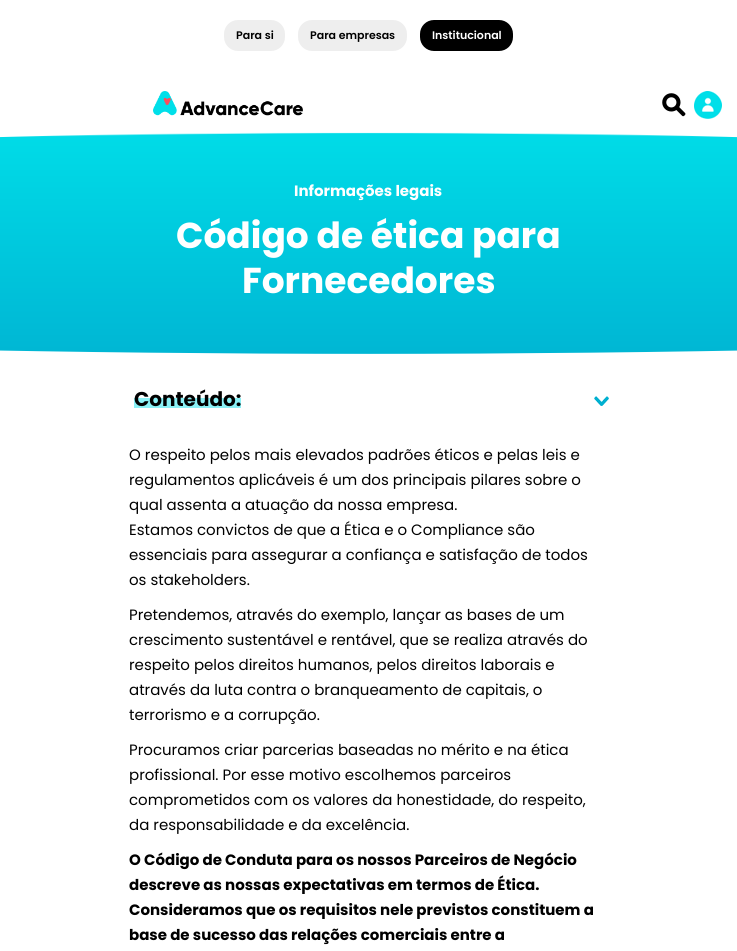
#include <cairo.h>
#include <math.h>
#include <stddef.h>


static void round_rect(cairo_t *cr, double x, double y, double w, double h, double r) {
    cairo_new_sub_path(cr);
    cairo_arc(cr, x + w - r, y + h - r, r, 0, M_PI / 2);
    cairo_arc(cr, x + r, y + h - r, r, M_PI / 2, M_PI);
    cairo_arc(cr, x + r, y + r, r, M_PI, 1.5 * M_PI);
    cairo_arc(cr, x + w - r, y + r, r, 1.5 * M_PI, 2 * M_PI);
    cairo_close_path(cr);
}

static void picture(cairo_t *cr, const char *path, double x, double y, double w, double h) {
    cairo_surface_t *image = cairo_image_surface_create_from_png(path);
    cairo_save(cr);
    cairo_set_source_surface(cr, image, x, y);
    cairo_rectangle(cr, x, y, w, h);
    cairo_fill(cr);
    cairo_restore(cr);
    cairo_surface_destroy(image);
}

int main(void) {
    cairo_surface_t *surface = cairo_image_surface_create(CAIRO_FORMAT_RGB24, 737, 951);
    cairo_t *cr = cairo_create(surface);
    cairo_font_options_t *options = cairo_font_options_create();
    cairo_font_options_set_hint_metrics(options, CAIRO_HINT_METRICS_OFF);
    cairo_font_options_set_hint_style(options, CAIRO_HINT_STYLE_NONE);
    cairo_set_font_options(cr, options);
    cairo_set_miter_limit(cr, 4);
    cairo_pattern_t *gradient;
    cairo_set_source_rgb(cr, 1, 1, 1);
    cairo_paint(cr);
    gradient = cairo_pattern_create_linear(369, 113, 369, 385);
    cairo_pattern_add_color_stop_rgba(gradient, 0, 0, 0.875, 0.914, 1);
    cairo_pattern_add_color_stop_rgba(gradient, 1, 0, 0.694, 0.82, 1);
    cairo_set_source(cr, gradient);
    cairo_pattern_destroy(gradient);
    cairo_rectangle(cr, 0, 132, 737, 222);
    cairo_fill(cr);
    picture(cr, "img1.png", 0, 113, 737, 25);
    cairo_set_source_rgb(cr, 0.933, 0.933, 0.933);
    round_rect(cr, 226, 22, 57, 27, 12);
    cairo_fill_preserve(cr);
    cairo_set_line_width(cr, 4);
    cairo_stroke(cr);
    cairo_select_font_face(cr, "Poppins SemiBold", CAIRO_FONT_SLANT_NORMAL, CAIRO_FONT_WEIGHT_NORMAL);
    cairo_set_font_size(cr, 11);
    cairo_set_source_rgb(cr, 0, 0, 0);
    cairo_move_to(cr, 236, 39);
    cairo_show_text(cr, "Para si");
    cairo_set_source_rgb(cr, 0.933, 0.933, 0.933);
    round_rect(cr, 300, 22, 105, 27, 12);
    cairo_fill_preserve(cr);
    cairo_stroke(cr);
    cairo_set_source_rgb(cr, 0, 0, 0);
    cairo_move_to(cr, 310, 39);
    cairo_show_text(cr, "Para empresas");
    round_rect(cr, 422, 22, 89, 27, 12);
    cairo_fill_preserve(cr);
    cairo_stroke(cr);
    cairo_set_source_rgb(cr, 1, 1, 1);
    cairo_move_to(cr, 432, 39);
    cairo_show_text(cr, "Institucional");
    picture(cr, "img2.png", 153, 91, 150, 25);
    picture(cr, "img3.png", 662, 93, 24, 24);
    picture(cr, "img4.png", 694, 91, 28, 28);
    cairo_select_font_face(cr, "Poppins", CAIRO_FONT_SLANT_NORMAL, CAIRO_FONT_WEIGHT_BOLD);
    cairo_set_font_size(cr, 15);
    cairo_move_to(cr, 294, 196);
    cairo_show_text(cr, "Informações legais");
    cairo_set_font_size(cr, 36);
    cairo_move_to(cr, 176, 248);
    cairo_show_text(cr, "Código de ética para");
    cairo_move_to(cr, 242, 293);
    cairo_show_text(cr, "Fornecedores");
    picture(cr, "img5.png", 0, 350, 737, 35);
    cairo_set_source_rgb(cr, 0.545, 0.945, 0.961);
    cairo_rectangle(cr, 134, 398, 107, 10);
    cairo_fill(cr);
    cairo_set_font_size(cr, 20);
    cairo_set_source_rgb(cr, 0, 0, 0);
    cairo_move_to(cr, 134, 406);
    cairo_show_text(cr, "Conteúdo:");
    picture(cr, "img6.png", 594, 396, 15, 10);
    cairo_select_font_face(cr, "Poppins", CAIRO_FONT_SLANT_NORMAL, CAIRO_FONT_WEIGHT_NORMAL);
    cairo_set_font_size(cr, 15);
    cairo_move_to(cr, 129, 460);
    cairo_show_text(cr, "O respeito pelos mais elevados padrões éticos e pelas leis e");
    cairo_move_to(cr, 129, 485);
    cairo_show_text(cr, "regulamentos aplicáveis é um dos principais pilares sobre o");
    cairo_move_to(cr, 129, 510);
    cairo_show_text(cr, "qual assenta a atuação da nossa empresa.");
    cairo_move_to(cr, 129, 535);
    cairo_show_text(cr, "Estamos convictos de que a Ética e o Compliance são");
    cairo_move_to(cr, 129, 560);
    cairo_show_text(cr, "essenciais para assegurar a confiança e satisfação de todos");
    cairo_move_to(cr, 129, 585);
    cairo_show_text(cr, "os stakeholders.");
    cairo_move_to(cr, 129, 620);
    cairo_show_text(cr, "Pretendemos, através do exemplo, lançar as bases de um");
    cairo_move_to(cr, 129, 645);
    cairo_show_text(cr, "crescimento sustentável e rentável, que se realiza através do");
    cairo_move_to(cr, 129, 670);
    cairo_show_text(cr, "respeito pelos direitos humanos, pelos direitos laborais e");
    cairo_move_to(cr, 129, 695);
    cairo_show_text(cr, "através da luta contra o branqueamento de capitais, o");
    cairo_move_to(cr, 129, 720);
    cairo_show_text(cr, "terrorismo e a corrupção.");
    cairo_move_to(cr, 129, 755);
    cairo_show_text(cr, "Procuramos criar parcerias baseadas no mérito e na ética");
    cairo_move_to(cr, 129, 780);
    cairo_show_text(cr, "profissional. Por esse motivo escolhemos parceiros");
    cairo_move_to(cr, 129, 805);
    cairo_show_text(cr, "comprometidos com os valores da honestidade, do respeito,");
    cairo_move_to(cr, 129, 830);
    cairo_show_text(cr, "da responsabilidade e da excelência.");
    cairo_select_font_face(cr, "Poppins", CAIRO_FONT_SLANT_NORMAL, CAIRO_FONT_WEIGHT_BOLD);
    cairo_move_to(cr, 129, 865);
    cairo_show_text(cr, "O Código de Conduta para os nossos Parceiros de Negócio");
    cairo_move_to(cr, 129, 890);
    cairo_show_text(cr, "descreve as nossas expectativas em termos de Ética.");
    cairo_move_to(cr, 129, 915);
    cairo_show_text(cr, "Consideramos que os requisitos nele previstos constituem a");
    cairo_move_to(cr, 129, 940);
    cairo_show_text(cr, "base de sucesso das relações comerciais entre a");
    cairo_surface_write_to_png(surface, "page.png");
    cairo_font_options_destroy(options);
    cairo_destroy(cr);
    cairo_surface_destroy(surface);
    return 0;
}
